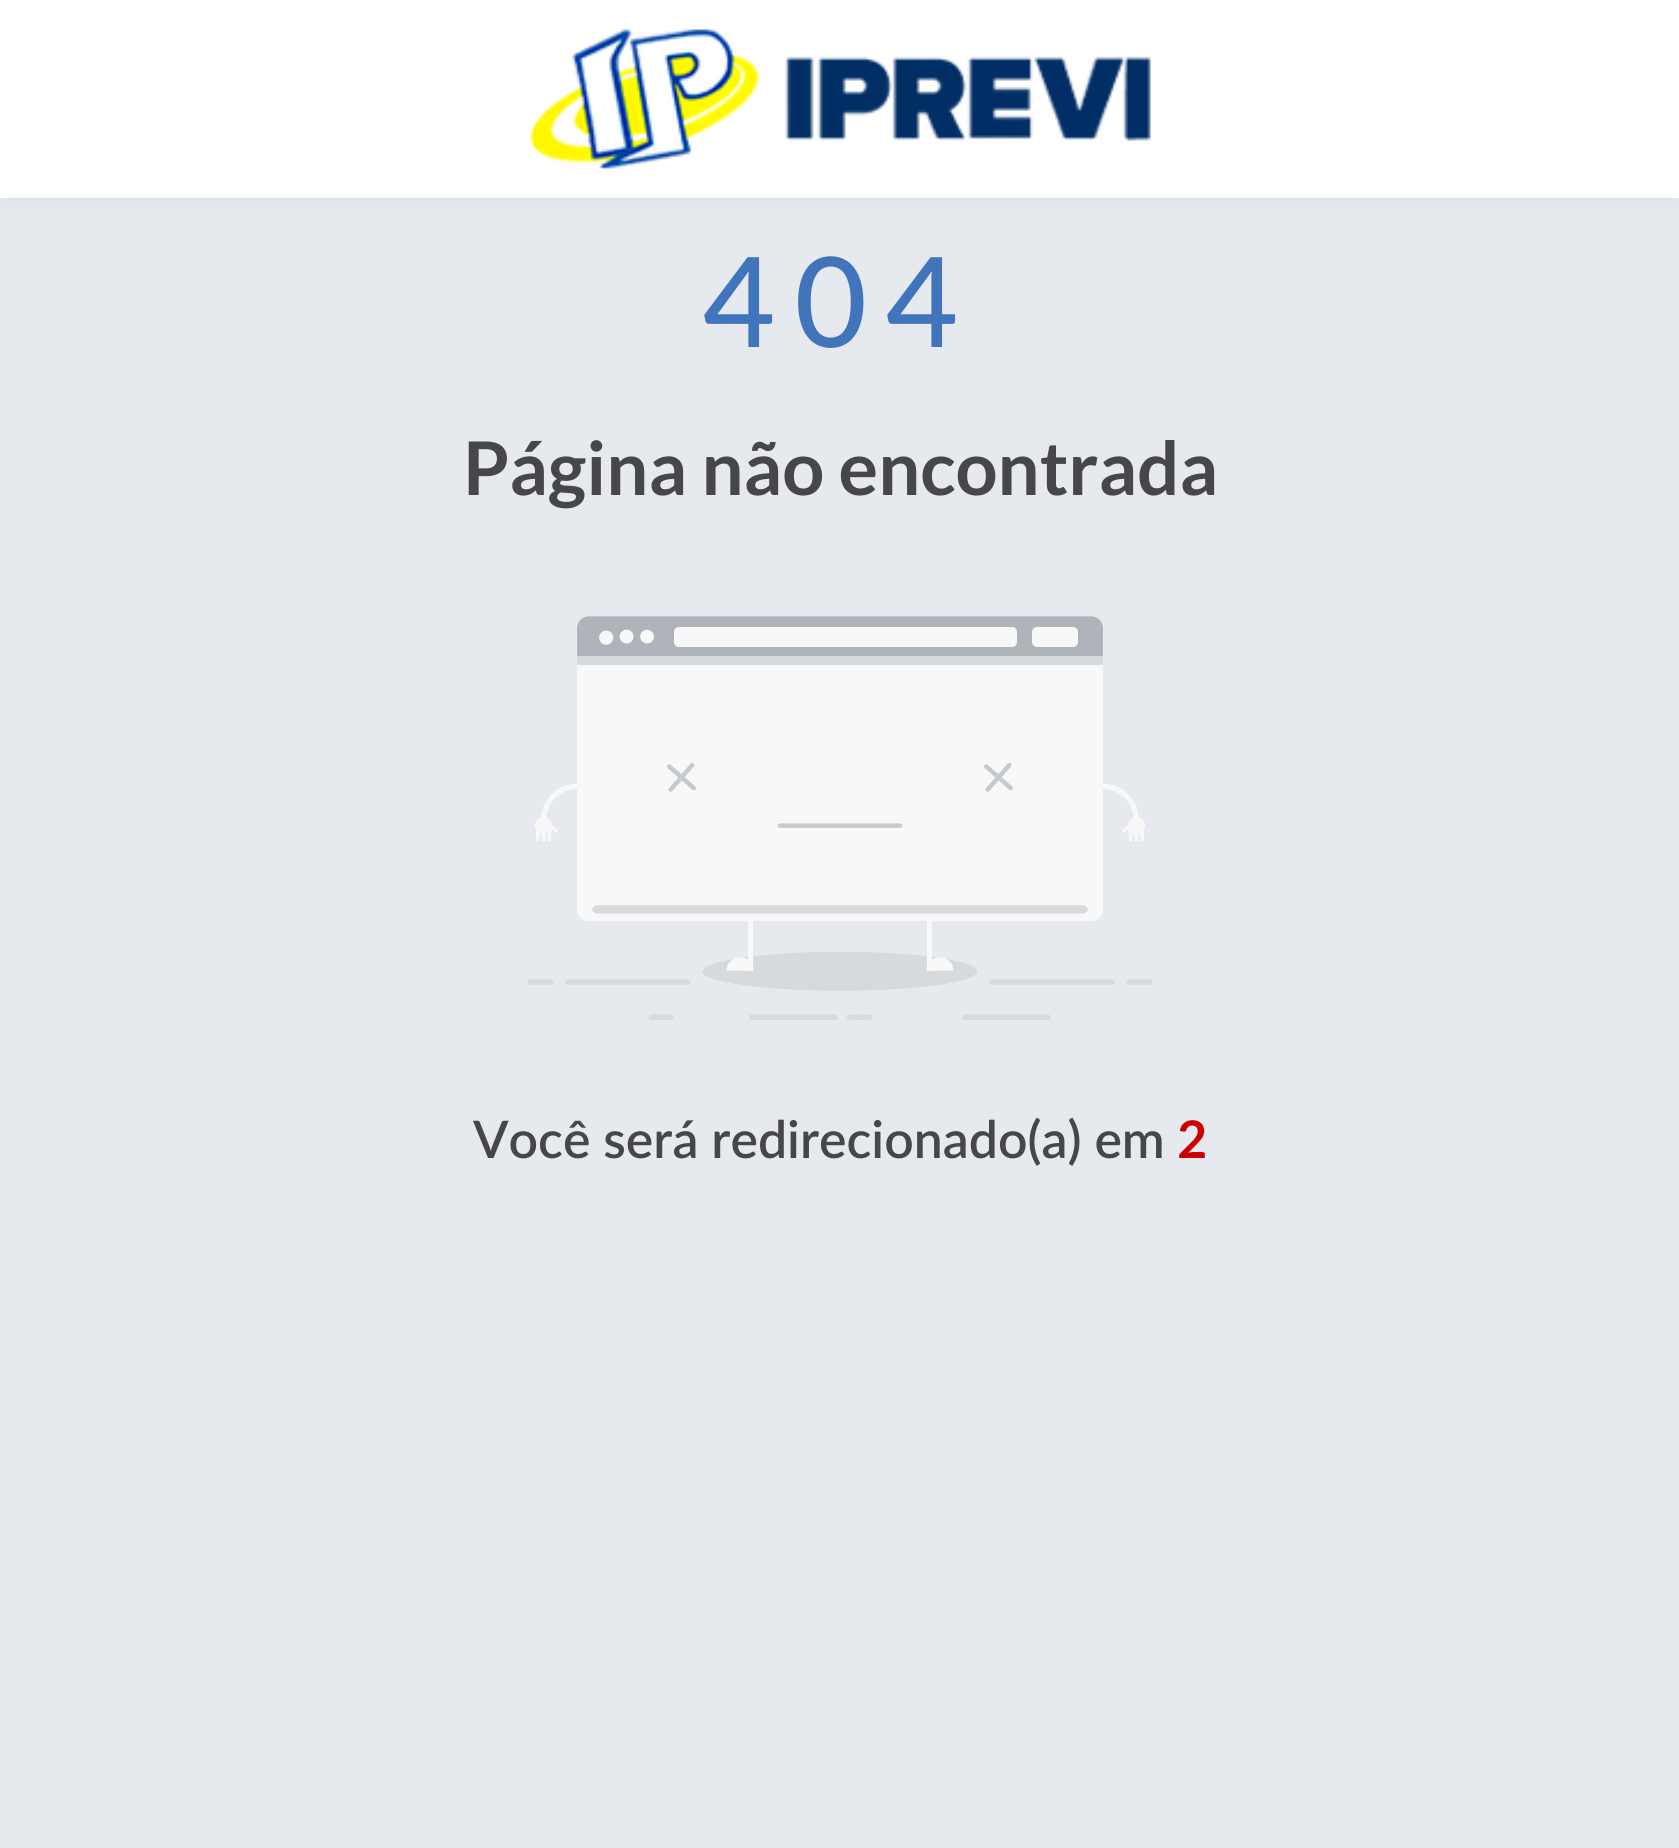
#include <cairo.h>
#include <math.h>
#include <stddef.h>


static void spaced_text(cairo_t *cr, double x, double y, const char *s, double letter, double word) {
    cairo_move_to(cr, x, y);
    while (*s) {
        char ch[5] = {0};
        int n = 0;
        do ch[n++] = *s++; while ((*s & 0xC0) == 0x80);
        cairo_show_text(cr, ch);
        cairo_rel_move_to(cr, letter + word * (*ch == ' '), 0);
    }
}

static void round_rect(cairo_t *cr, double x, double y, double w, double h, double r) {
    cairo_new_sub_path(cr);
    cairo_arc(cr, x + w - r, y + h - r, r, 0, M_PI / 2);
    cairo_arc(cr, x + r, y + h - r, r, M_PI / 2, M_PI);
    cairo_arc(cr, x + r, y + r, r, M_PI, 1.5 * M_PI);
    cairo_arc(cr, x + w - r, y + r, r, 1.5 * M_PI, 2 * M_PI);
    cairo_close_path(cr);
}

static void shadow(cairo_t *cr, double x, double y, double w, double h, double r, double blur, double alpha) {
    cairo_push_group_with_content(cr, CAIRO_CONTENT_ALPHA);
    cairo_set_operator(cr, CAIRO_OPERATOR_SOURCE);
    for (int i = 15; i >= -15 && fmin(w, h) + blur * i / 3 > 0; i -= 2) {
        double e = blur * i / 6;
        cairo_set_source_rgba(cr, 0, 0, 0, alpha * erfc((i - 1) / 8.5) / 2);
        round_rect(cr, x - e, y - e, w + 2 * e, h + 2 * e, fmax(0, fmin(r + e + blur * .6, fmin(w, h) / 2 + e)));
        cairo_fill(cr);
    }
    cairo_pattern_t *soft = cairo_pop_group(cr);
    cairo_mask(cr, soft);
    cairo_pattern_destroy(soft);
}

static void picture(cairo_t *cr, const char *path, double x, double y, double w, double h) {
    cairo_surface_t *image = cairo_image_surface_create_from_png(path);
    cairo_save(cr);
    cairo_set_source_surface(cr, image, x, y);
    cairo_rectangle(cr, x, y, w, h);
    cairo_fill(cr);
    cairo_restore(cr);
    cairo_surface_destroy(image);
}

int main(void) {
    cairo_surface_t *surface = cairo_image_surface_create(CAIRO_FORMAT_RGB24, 1679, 1848);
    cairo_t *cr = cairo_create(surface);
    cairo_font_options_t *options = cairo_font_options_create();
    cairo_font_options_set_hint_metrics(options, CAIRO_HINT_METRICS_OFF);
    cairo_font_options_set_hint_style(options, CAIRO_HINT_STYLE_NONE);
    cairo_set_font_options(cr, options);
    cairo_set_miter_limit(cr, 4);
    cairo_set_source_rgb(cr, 0.902, 0.914, 0.929);
    cairo_paint(cr);
    cairo_set_source_rgb(cr, 0, 0, 0);
    shadow(cr, 0, 0, 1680, 198, 0, 12.5, 0.05);
    cairo_set_source_rgb(cr, 1, 1, 1);
    cairo_rectangle(cr, 0, 0, 1679, 198);
    cairo_fill(cr);
    picture(cr, "img1.png", 530, 29, 621, 140);
    cairo_select_font_face(cr, "Lato Medium", CAIRO_FONT_SLANT_NORMAL, CAIRO_FONT_WEIGHT_NORMAL);
    cairo_set_font_size(cr, 125);
    cairo_set_source_rgb(cr, 0.255, 0.459, 0.733);
    spaced_text(cr, 703, 347, "404", 19, 0);
    cairo_select_font_face(cr, "Lato", CAIRO_FONT_SLANT_NORMAL, CAIRO_FONT_WEIGHT_BOLD);
    cairo_set_font_size(cr, 74);
    cairo_set_source_rgb(cr, 0.278, 0.278, 0.294);
    cairo_move_to(cr, 463, 495);
    cairo_show_text(cr, "Página não encontrada");
    picture(cr, "img2.png", 528, 616, 624, 404);
    cairo_select_font_face(cr, "Lato SemiBold", CAIRO_FONT_SLANT_NORMAL, CAIRO_FONT_WEIGHT_NORMAL);
    cairo_set_font_size(cr, 51.75);
    cairo_move_to(cr, 473, 1158);
    cairo_show_text(cr, "Você será redirecionado(a) em");
    cairo_select_font_face(cr, "Lato", CAIRO_FONT_SLANT_NORMAL, CAIRO_FONT_WEIGHT_BOLD);
    cairo_set_source_rgb(cr, 0.792, 0, 0);
    cairo_move_to(cr, 1177, 1158);
    cairo_show_text(cr, "2");
    cairo_surface_write_to_png(surface, "page.png");
    cairo_font_options_destroy(options);
    cairo_destroy(cr);
    cairo_surface_destroy(surface);
    return 0;
}
